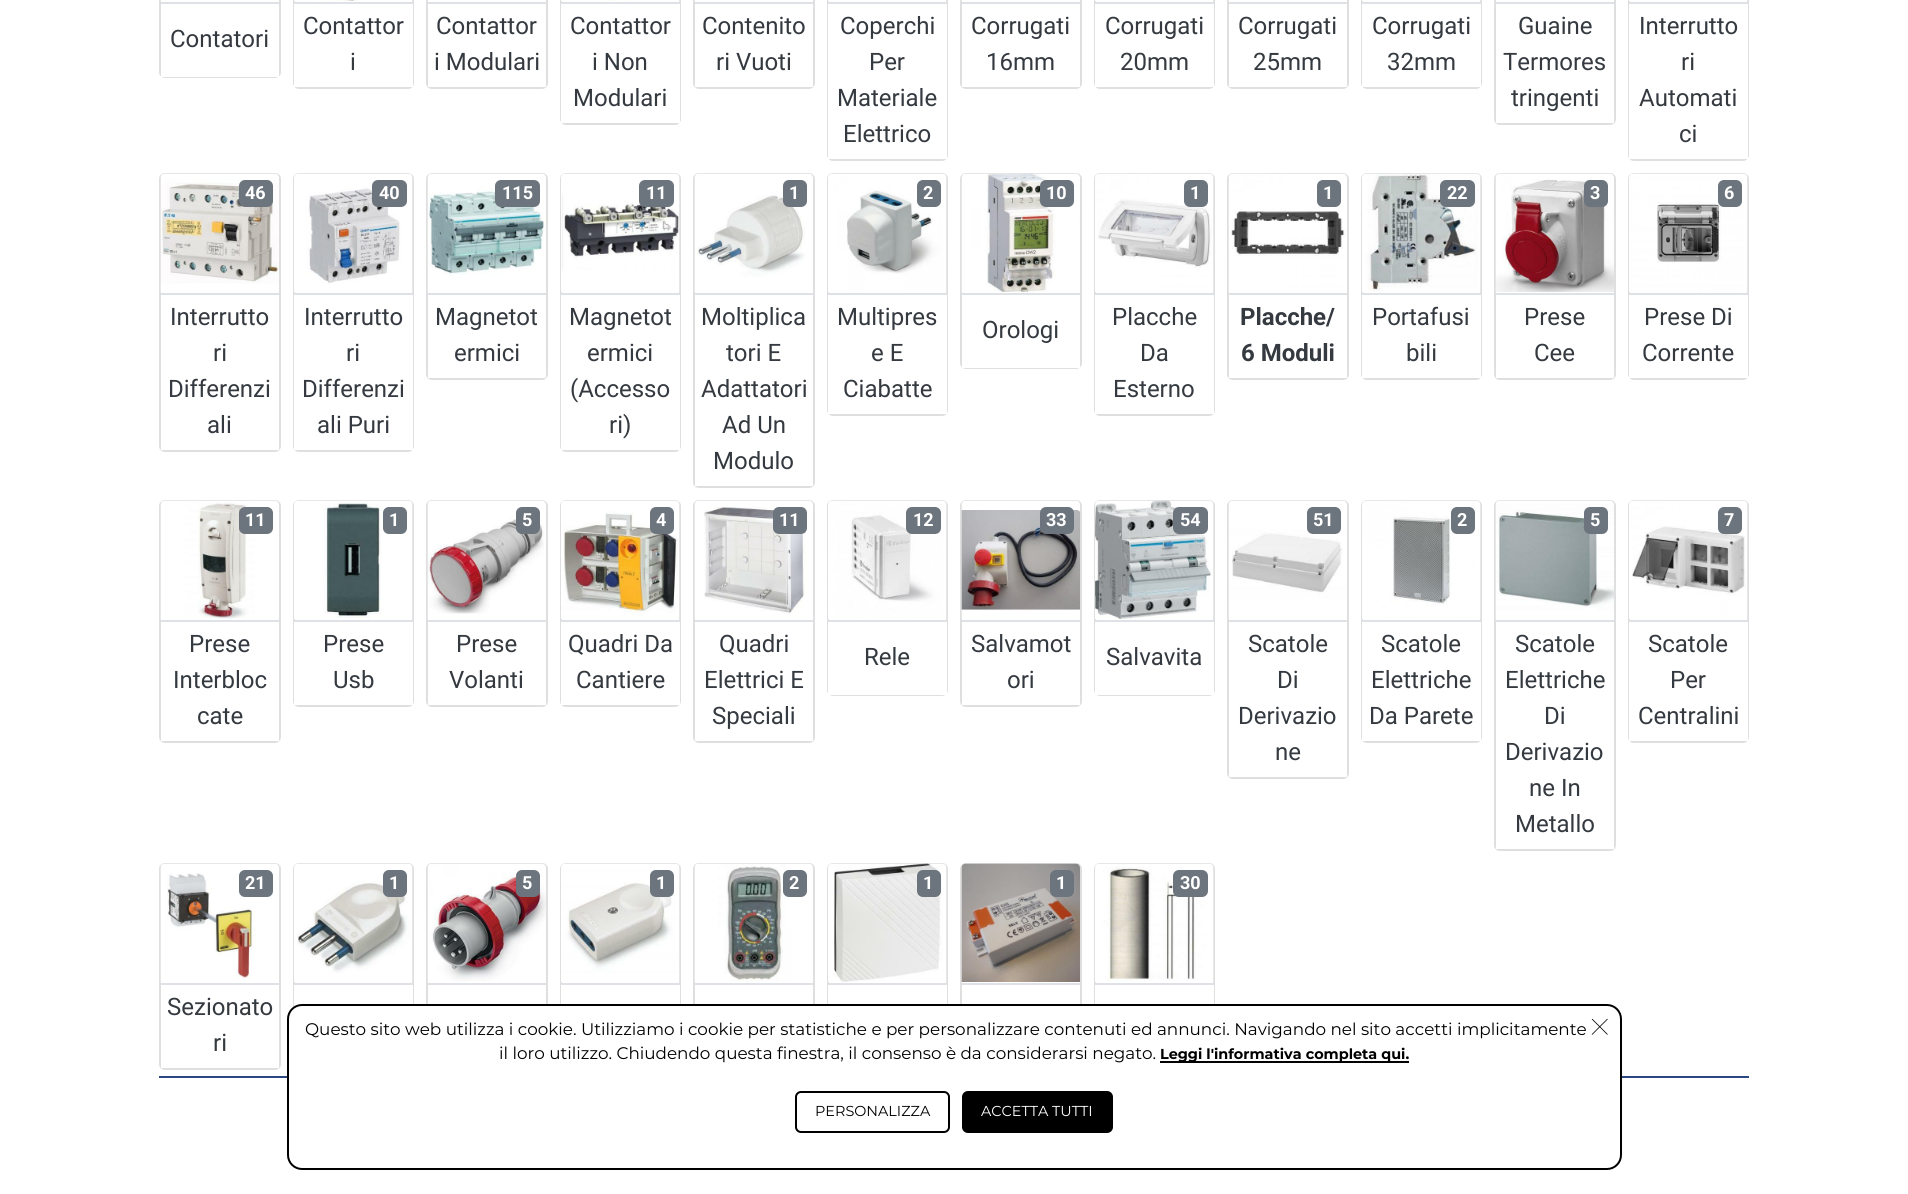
#include <cairo.h>
#include <math.h>
#include <stddef.h>


static void round_rect(cairo_t *cr, double x, double y, double w, double h, double r) {
    cairo_new_sub_path(cr);
    cairo_arc(cr, x + w - r, y + h - r, r, 0, M_PI / 2);
    cairo_arc(cr, x + r, y + h - r, r, M_PI / 2, M_PI);
    cairo_arc(cr, x + r, y + r, r, M_PI, 1.5 * M_PI);
    cairo_arc(cr, x + w - r, y + r, r, 1.5 * M_PI, 2 * M_PI);
    cairo_close_path(cr);
}

static void picture(cairo_t *cr, const char *path, double x, double y, double w, double h) {
    cairo_surface_t *image = cairo_image_surface_create_from_png(path);
    cairo_save(cr);
    cairo_set_source_surface(cr, image, x, y);
    cairo_rectangle(cr, x, y, w, h);
    cairo_fill(cr);
    cairo_restore(cr);
    cairo_surface_destroy(image);
}

int main(void) {
    cairo_surface_t *surface = cairo_image_surface_create(CAIRO_FORMAT_RGB24, 1908, 1194);
    cairo_t *cr = cairo_create(surface);
    cairo_font_options_t *options = cairo_font_options_create();
    cairo_font_options_set_hint_metrics(options, CAIRO_HINT_METRICS_OFF);
    cairo_font_options_set_hint_style(options, CAIRO_HINT_STYLE_NONE);
    cairo_set_font_options(cr, options);
    cairo_set_miter_limit(cr, 4);
    cairo_set_source_rgb(cr, 1, 1, 1);
    cairo_paint(cr);
    cairo_set_source_rgb(cr, 0.165, 0.278, 0.514);
    cairo_rectangle(cr, 159, 1076, 1590, 2);
    cairo_fill(cr);
    round_rect(cr, 160, -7, 120, 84, 5);
    cairo_set_source_rgb(cr, 0.875, 0.875, 0.875);
    cairo_stroke(cr);
    cairo_set_source_rgb(cr, 0.906, 0.906, 0.906);
    cairo_rectangle(cr, 160, 0, 1, 1);
    cairo_fill(cr);
    cairo_set_source_rgb(cr, 1, 1, 1);
    cairo_rectangle(cr, 161, 73, 118, 4);
    cairo_fill(cr);
    cairo_set_source_rgb(cr, 0.871, 0.886, 0.902);
    cairo_rectangle(cr, 161, 2, 118, 2);
    cairo_fill(cr);
    cairo_select_font_face(cr, "Roboto", CAIRO_FONT_SLANT_NORMAL, CAIRO_FONT_WEIGHT_NORMAL);
    cairo_set_font_size(cr, 24);
    cairo_set_source_rgb(cr, 0.204, 0.227, 0.251);
    cairo_move_to(cr, 170, 47);
    cairo_show_text(cr, "Contatori");
    round_rect(cr, 294, -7, 119, 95, 5);
    cairo_set_source_rgb(cr, 0.875, 0.875, 0.875);
    cairo_stroke(cr);
    picture(cr, "img1.png", 294, 0, 119, 1);
    cairo_set_source_rgb(cr, 1, 1, 1);
    cairo_rectangle(cr, 294, 4, 119, 83);
    cairo_fill(cr);
    cairo_set_source_rgb(cr, 0.871, 0.886, 0.902);
    cairo_rectangle(cr, 294, 2, 119, 2);
    cairo_fill(cr);
    cairo_set_source_rgb(cr, 0.204, 0.227, 0.251);
    cairo_move_to(cr, 303, 34);
    cairo_show_text(cr, "Contattor");
    cairo_move_to(cr, 350, 70);
    cairo_show_text(cr, "i");
    round_rect(cr, 427, -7, 120, 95, 5);
    cairo_set_source_rgb(cr, 0.875, 0.875, 0.875);
    cairo_stroke(cr);
    cairo_set_source_rgb(cr, 0.906, 0.906, 0.906);
    cairo_rectangle(cr, 427, 0, 1, 1);
    cairo_fill(cr);
    cairo_set_source_rgb(cr, 1, 1, 1);
    cairo_rectangle(cr, 428, 84, 118, 3);
    cairo_fill(cr);
    cairo_set_source_rgb(cr, 0.871, 0.886, 0.902);
    cairo_rectangle(cr, 428, 2, 118, 2);
    cairo_fill(cr);
    cairo_set_source_rgb(cr, 0.204, 0.227, 0.251);
    cairo_move_to(cr, 436, 34);
    cairo_show_text(cr, "Contattor");
    cairo_move_to(cr, 434, 70);
    cairo_show_text(cr, "i Modulari");
    round_rect(cr, 561, -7, 119, 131, 5);
    cairo_set_source_rgb(cr, 0.875, 0.875, 0.875);
    cairo_stroke(cr);
    picture(cr, "img2.png", 561, 0, 119, 1);
    cairo_set_source_rgb(cr, 1, 1, 1);
    cairo_rectangle(cr, 561, 4, 119, 119);
    cairo_fill(cr);
    cairo_set_source_rgb(cr, 0.871, 0.886, 0.902);
    cairo_rectangle(cr, 561, 2, 119, 2);
    cairo_fill(cr);
    cairo_set_source_rgb(cr, 0.204, 0.227, 0.251);
    cairo_move_to(cr, 570, 34);
    cairo_show_text(cr, "Contattor");
    cairo_move_to(cr, 592, 70);
    cairo_show_text(cr, "i Non");
    cairo_move_to(cr, 573, 106);
    cairo_show_text(cr, "Modulari");
    round_rect(cr, 694, -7, 120, 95, 5);
    cairo_set_source_rgb(cr, 0.875, 0.875, 0.875);
    cairo_stroke(cr);
    cairo_set_source_rgb(cr, 0.906, 0.906, 0.906);
    cairo_rectangle(cr, 694, 0, 1, 1);
    cairo_fill(cr);
    cairo_set_source_rgb(cr, 1, 1, 1);
    cairo_rectangle(cr, 695, 84, 118, 3);
    cairo_fill(cr);
    cairo_set_source_rgb(cr, 0.871, 0.886, 0.902);
    cairo_rectangle(cr, 695, 2, 118, 2);
    cairo_fill(cr);
    cairo_set_source_rgb(cr, 0.204, 0.227, 0.251);
    cairo_move_to(cr, 702, 34);
    cairo_show_text(cr, "Contenito");
    cairo_move_to(cr, 716, 70);
    cairo_show_text(cr, "ri Vuoti");
    round_rect(cr, 828, -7, 119, 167, 5);
    cairo_set_source_rgb(cr, 0.875, 0.875, 0.875);
    cairo_stroke(cr);
    picture(cr, "img3.png", 828, 0, 119, 1);
    cairo_set_source_rgb(cr, 1, 1, 1);
    cairo_rectangle(cr, 828, 4, 119, 155);
    cairo_fill(cr);
    cairo_set_source_rgb(cr, 0.871, 0.886, 0.902);
    cairo_rectangle(cr, 828, 2, 119, 2);
    cairo_fill(cr);
    cairo_set_source_rgb(cr, 0.204, 0.227, 0.251);
    cairo_move_to(cr, 840, 34);
    cairo_show_text(cr, "Coperchi");
    cairo_move_to(cr, 869, 70);
    cairo_show_text(cr, "Per");
    cairo_move_to(cr, 837, 106);
    cairo_show_text(cr, "Materiale");
    cairo_move_to(cr, 843, 142);
    cairo_show_text(cr, "Elettrico");
    round_rect(cr, 961, -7, 120, 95, 5);
    cairo_set_source_rgb(cr, 0.875, 0.875, 0.875);
    cairo_stroke(cr);
    cairo_set_source_rgb(cr, 0.906, 0.906, 0.906);
    cairo_rectangle(cr, 961, 0, 1, 1);
    cairo_fill(cr);
    cairo_set_source_rgb(cr, 1, 1, 1);
    cairo_rectangle(cr, 962, 84, 118, 3);
    cairo_fill(cr);
    cairo_set_source_rgb(cr, 0.871, 0.886, 0.902);
    cairo_rectangle(cr, 962, 2, 118, 2);
    cairo_fill(cr);
    cairo_set_source_rgb(cr, 0.204, 0.227, 0.251);
    cairo_move_to(cr, 971, 34);
    cairo_show_text(cr, "Corrugati");
    cairo_move_to(cr, 986, 70);
    cairo_show_text(cr, "16mm");
    round_rect(cr, 1095, -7, 119, 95, 5);
    cairo_set_source_rgb(cr, 0.875, 0.875, 0.875);
    cairo_stroke(cr);
    picture(cr, "img4.png", 1095, 0, 119, 1);
    cairo_set_source_rgb(cr, 1, 1, 1);
    cairo_rectangle(cr, 1095, 4, 119, 83);
    cairo_fill(cr);
    cairo_set_source_rgb(cr, 0.871, 0.886, 0.902);
    cairo_rectangle(cr, 1095, 2, 119, 2);
    cairo_fill(cr);
    cairo_set_source_rgb(cr, 0.204, 0.227, 0.251);
    cairo_move_to(cr, 1105, 34);
    cairo_show_text(cr, "Corrugati");
    cairo_move_to(cr, 1120, 70);
    cairo_show_text(cr, "20mm");
    round_rect(cr, 1228, -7, 120, 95, 5);
    cairo_set_source_rgb(cr, 0.875, 0.875, 0.875);
    cairo_stroke(cr);
    cairo_set_source_rgb(cr, 0.906, 0.906, 0.906);
    cairo_rectangle(cr, 1228, 0, 1, 1);
    cairo_fill(cr);
    cairo_set_source_rgb(cr, 1, 1, 1);
    cairo_rectangle(cr, 1229, 84, 118, 3);
    cairo_fill(cr);
    cairo_set_source_rgb(cr, 0.871, 0.886, 0.902);
    cairo_rectangle(cr, 1229, 2, 118, 2);
    cairo_fill(cr);
    cairo_set_source_rgb(cr, 0.204, 0.227, 0.251);
    cairo_move_to(cr, 1238, 34);
    cairo_show_text(cr, "Corrugati");
    cairo_move_to(cr, 1253, 70);
    cairo_show_text(cr, "25mm");
    round_rect(cr, 1362, -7, 119, 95, 5);
    cairo_set_source_rgb(cr, 0.875, 0.875, 0.875);
    cairo_stroke(cr);
    picture(cr, "img4.png", 1362, 0, 119, 1);
    cairo_set_source_rgb(cr, 1, 1, 1);
    cairo_rectangle(cr, 1362, 4, 119, 83);
    cairo_fill(cr);
    cairo_set_source_rgb(cr, 0.871, 0.886, 0.902);
    cairo_rectangle(cr, 1362, 2, 119, 2);
    cairo_fill(cr);
    cairo_set_source_rgb(cr, 0.204, 0.227, 0.251);
    cairo_move_to(cr, 1372, 34);
    cairo_show_text(cr, "Corrugati");
    cairo_move_to(cr, 1387, 70);
    cairo_show_text(cr, "32mm");
    round_rect(cr, 1495, -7, 120, 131, 5);
    cairo_set_source_rgb(cr, 0.875, 0.875, 0.875);
    cairo_stroke(cr);
    cairo_set_source_rgb(cr, 0.906, 0.906, 0.906);
    cairo_rectangle(cr, 1495, 0, 1, 1);
    cairo_fill(cr);
    cairo_set_source_rgb(cr, 1, 1, 1);
    cairo_rectangle(cr, 1496, 120, 118, 3);
    cairo_fill(cr);
    cairo_set_source_rgb(cr, 0.871, 0.886, 0.902);
    cairo_rectangle(cr, 1496, 2, 118, 2);
    cairo_fill(cr);
    cairo_set_source_rgb(cr, 0.204, 0.227, 0.251);
    cairo_move_to(cr, 1518, 34);
    cairo_show_text(cr, "Guaine");
    cairo_move_to(cr, 1503, 70);
    cairo_show_text(cr, "Termores");
    cairo_move_to(cr, 1511, 106);
    cairo_show_text(cr, "tringenti");
    round_rect(cr, 1629, -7, 119, 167, 5);
    cairo_set_source_rgb(cr, 0.875, 0.875, 0.875);
    cairo_stroke(cr);
    picture(cr, "img4.png", 1629, 0, 119, 1);
    cairo_set_source_rgb(cr, 1, 1, 1);
    cairo_rectangle(cr, 1629, 4, 119, 155);
    cairo_fill(cr);
    cairo_set_source_rgb(cr, 0.871, 0.886, 0.902);
    cairo_rectangle(cr, 1629, 2, 119, 2);
    cairo_fill(cr);
    cairo_set_source_rgb(cr, 0.204, 0.227, 0.251);
    cairo_move_to(cr, 1639, 34);
    cairo_show_text(cr, "Interrutto");
    cairo_move_to(cr, 1681, 70);
    cairo_show_text(cr, "ri");
    cairo_move_to(cr, 1639, 106);
    cairo_show_text(cr, "Automati");
    cairo_move_to(cr, 1679, 142);
    cairo_show_text(cr, "ci");
    round_rect(cr, 160, 174, 120, 277, 5);
    cairo_set_source_rgb(cr, 0.875, 0.875, 0.875);
    cairo_stroke(cr);
    picture(cr, "img5.png", 160, 173, 119, 119);
    cairo_set_source_rgb(cr, 0.424, 0.459, 0.49);
    round_rect(cr, 239, 180, 34, 27, 6);
    cairo_fill(cr);
    cairo_select_font_face(cr, "Roboto", CAIRO_FONT_SLANT_NORMAL, CAIRO_FONT_WEIGHT_BOLD);
    cairo_set_font_size(cr, 18);
    cairo_set_source_rgb(cr, 1, 1, 1);
    cairo_move_to(cr, 245, 199);
    cairo_show_text(cr, "46");
    cairo_rectangle(cr, 161, 447, 118, 3);
    cairo_fill(cr);
    cairo_set_source_rgb(cr, 0.871, 0.886, 0.902);
    cairo_rectangle(cr, 161, 293, 118, 2);
    cairo_fill(cr);
    cairo_select_font_face(cr, "Roboto", CAIRO_FONT_SLANT_NORMAL, CAIRO_FONT_WEIGHT_NORMAL);
    cairo_set_font_size(cr, 24);
    cairo_set_source_rgb(cr, 0.204, 0.227, 0.251);
    cairo_move_to(cr, 170, 325);
    cairo_show_text(cr, "Interrutto");
    cairo_move_to(cr, 213, 361);
    cairo_show_text(cr, "ri");
    cairo_move_to(cr, 168, 397);
    cairo_show_text(cr, "Differenzi");
    cairo_move_to(cr, 207, 433);
    cairo_show_text(cr, "ali");
    round_rect(cr, 294, 174, 119, 277, 5);
    cairo_set_source_rgb(cr, 0.875, 0.875, 0.875);
    cairo_stroke(cr);
    picture(cr, "img6.png", 294, 173, 119, 119);
    cairo_set_source_rgb(cr, 0.424, 0.459, 0.49);
    round_rect(cr, 372, 180, 35, 27, 6);
    cairo_fill(cr);
    cairo_select_font_face(cr, "Roboto", CAIRO_FONT_SLANT_NORMAL, CAIRO_FONT_WEIGHT_BOLD);
    cairo_set_font_size(cr, 18);
    cairo_set_source_rgb(cr, 1, 1, 1);
    cairo_move_to(cr, 379, 199);
    cairo_show_text(cr, "40");
    cairo_rectangle(cr, 294, 295, 119, 155);
    cairo_fill(cr);
    cairo_set_source_rgb(cr, 0.871, 0.886, 0.902);
    cairo_rectangle(cr, 294, 293, 119, 2);
    cairo_fill(cr);
    cairo_select_font_face(cr, "Roboto", CAIRO_FONT_SLANT_NORMAL, CAIRO_FONT_WEIGHT_NORMAL);
    cairo_set_font_size(cr, 24);
    cairo_set_source_rgb(cr, 0.204, 0.227, 0.251);
    cairo_move_to(cr, 304, 325);
    cairo_show_text(cr, "Interrutto");
    cairo_move_to(cr, 346, 361);
    cairo_show_text(cr, "ri");
    cairo_move_to(cr, 302, 397);
    cairo_show_text(cr, "Differenzi");
    cairo_move_to(cr, 317, 433);
    cairo_show_text(cr, "ali Puri");
    round_rect(cr, 427, 174, 120, 205, 5);
    cairo_set_source_rgb(cr, 0.875, 0.875, 0.875);
    cairo_stroke(cr);
    picture(cr, "img7.png", 427, 173, 119, 119);
    cairo_set_source_rgb(cr, 0.424, 0.459, 0.49);
    round_rect(cr, 495, 180, 45, 27, 6);
    cairo_fill(cr);
    cairo_select_font_face(cr, "Roboto", CAIRO_FONT_SLANT_NORMAL, CAIRO_FONT_WEIGHT_BOLD);
    cairo_set_font_size(cr, 18);
    cairo_set_source_rgb(cr, 1, 1, 1);
    cairo_move_to(cr, 502, 199);
    cairo_show_text(cr, "115");
    cairo_rectangle(cr, 428, 375, 118, 3);
    cairo_fill(cr);
    cairo_set_source_rgb(cr, 0.871, 0.886, 0.902);
    cairo_rectangle(cr, 428, 293, 118, 2);
    cairo_fill(cr);
    cairo_select_font_face(cr, "Roboto", CAIRO_FONT_SLANT_NORMAL, CAIRO_FONT_WEIGHT_NORMAL);
    cairo_set_font_size(cr, 24);
    cairo_set_source_rgb(cr, 0.204, 0.227, 0.251);
    cairo_move_to(cr, 435, 325);
    cairo_show_text(cr, "Magnetot");
    cairo_move_to(cr, 454, 361);
    cairo_show_text(cr, "ermici");
    round_rect(cr, 561, 174, 119, 277, 5);
    cairo_set_source_rgb(cr, 0.875, 0.875, 0.875);
    cairo_stroke(cr);
    picture(cr, "img8.png", 561, 173, 119, 119);
    cairo_set_source_rgb(cr, 0.424, 0.459, 0.49);
    round_rect(cr, 639, 180, 35, 27, 6);
    cairo_fill(cr);
    cairo_select_font_face(cr, "Roboto", CAIRO_FONT_SLANT_NORMAL, CAIRO_FONT_WEIGHT_BOLD);
    cairo_set_font_size(cr, 18);
    cairo_set_source_rgb(cr, 1, 1, 1);
    cairo_move_to(cr, 646, 199);
    cairo_show_text(cr, "11");
    cairo_rectangle(cr, 561, 295, 119, 155);
    cairo_fill(cr);
    cairo_set_source_rgb(cr, 0.871, 0.886, 0.902);
    cairo_rectangle(cr, 561, 293, 119, 2);
    cairo_fill(cr);
    cairo_select_font_face(cr, "Roboto", CAIRO_FONT_SLANT_NORMAL, CAIRO_FONT_WEIGHT_NORMAL);
    cairo_set_font_size(cr, 24);
    cairo_set_source_rgb(cr, 0.204, 0.227, 0.251);
    cairo_move_to(cr, 569, 325);
    cairo_show_text(cr, "Magnetot");
    cairo_move_to(cr, 587, 361);
    cairo_show_text(cr, "ermici");
    cairo_move_to(cr, 570, 397);
    cairo_show_text(cr, "(Accesso");
    cairo_move_to(cr, 609, 433);
    cairo_show_text(cr, "ri)");
    round_rect(cr, 694, 174, 120, 313, 5);
    cairo_set_source_rgb(cr, 0.875, 0.875, 0.875);
    cairo_stroke(cr);
    picture(cr, "img9.png", 694, 173, 119, 119);
    cairo_set_source_rgb(cr, 0.424, 0.459, 0.49);
    round_rect(cr, 783, 180, 24, 27, 6);
    cairo_fill(cr);
    cairo_select_font_face(cr, "Roboto", CAIRO_FONT_SLANT_NORMAL, CAIRO_FONT_WEIGHT_BOLD);
    cairo_set_font_size(cr, 18);
    cairo_set_source_rgb(cr, 1, 1, 1);
    cairo_move_to(cr, 789, 199);
    cairo_show_text(cr, "1");
    cairo_rectangle(cr, 695, 483, 118, 3);
    cairo_fill(cr);
    cairo_set_source_rgb(cr, 0.871, 0.886, 0.902);
    cairo_rectangle(cr, 695, 293, 118, 2);
    cairo_fill(cr);
    cairo_select_font_face(cr, "Roboto", CAIRO_FONT_SLANT_NORMAL, CAIRO_FONT_WEIGHT_NORMAL);
    cairo_set_font_size(cr, 24);
    cairo_set_source_rgb(cr, 0.204, 0.227, 0.251);
    cairo_move_to(cr, 701, 325);
    cairo_show_text(cr, "Moltiplica");
    cairo_move_to(cr, 726, 361);
    cairo_show_text(cr, "tori E");
    cairo_move_to(cr, 701, 397);
    cairo_show_text(cr, "Adattatori");
    cairo_move_to(cr, 722, 433);
    cairo_show_text(cr, "Ad Un");
    cairo_move_to(cr, 713, 469);
    cairo_show_text(cr, "Modulo");
    round_rect(cr, 828, 174, 119, 241, 5);
    cairo_set_source_rgb(cr, 0.875, 0.875, 0.875);
    cairo_stroke(cr);
    picture(cr, "img10.png", 828, 173, 119, 119);
    cairo_set_source_rgb(cr, 0.424, 0.459, 0.49);
    round_rect(cr, 917, 180, 24, 27, 6);
    cairo_fill(cr);
    cairo_select_font_face(cr, "Roboto", CAIRO_FONT_SLANT_NORMAL, CAIRO_FONT_WEIGHT_BOLD);
    cairo_set_font_size(cr, 18);
    cairo_set_source_rgb(cr, 1, 1, 1);
    cairo_move_to(cr, 923, 199);
    cairo_show_text(cr, "2");
    cairo_rectangle(cr, 828, 295, 119, 119);
    cairo_fill(cr);
    cairo_set_source_rgb(cr, 0.871, 0.886, 0.902);
    cairo_rectangle(cr, 828, 293, 119, 2);
    cairo_fill(cr);
    cairo_select_font_face(cr, "Roboto", CAIRO_FONT_SLANT_NORMAL, CAIRO_FONT_WEIGHT_NORMAL);
    cairo_set_font_size(cr, 24);
    cairo_set_source_rgb(cr, 0.204, 0.227, 0.251);
    cairo_move_to(cr, 837, 325);
    cairo_show_text(cr, "Multipres");
    cairo_move_to(cr, 871, 361);
    cairo_show_text(cr, "e E");
    cairo_move_to(cr, 843, 397);
    cairo_show_text(cr, "Ciabatte");
    round_rect(cr, 961, 174, 120, 194, 5);
    cairo_set_source_rgb(cr, 0.875, 0.875, 0.875);
    cairo_stroke(cr);
    picture(cr, "img11.png", 961, 173, 119, 119);
    cairo_set_source_rgb(cr, 0.424, 0.459, 0.49);
    round_rect(cr, 1040, 180, 34, 27, 6);
    cairo_fill(cr);
    cairo_select_font_face(cr, "Roboto", CAIRO_FONT_SLANT_NORMAL, CAIRO_FONT_WEIGHT_BOLD);
    cairo_set_font_size(cr, 18);
    cairo_set_source_rgb(cr, 1, 1, 1);
    cairo_move_to(cr, 1046, 199);
    cairo_show_text(cr, "10");
    cairo_rectangle(cr, 962, 364, 118, 4);
    cairo_fill(cr);
    cairo_set_source_rgb(cr, 0.871, 0.886, 0.902);
    cairo_rectangle(cr, 962, 293, 118, 2);
    cairo_fill(cr);
    cairo_select_font_face(cr, "Roboto", CAIRO_FONT_SLANT_NORMAL, CAIRO_FONT_WEIGHT_NORMAL);
    cairo_set_font_size(cr, 24);
    cairo_set_source_rgb(cr, 0.204, 0.227, 0.251);
    cairo_move_to(cr, 982, 338);
    cairo_show_text(cr, "Orologi");
    round_rect(cr, 1095, 174, 119, 241, 5);
    cairo_set_source_rgb(cr, 0.875, 0.875, 0.875);
    cairo_stroke(cr);
    picture(cr, "img12.png", 1095, 173, 119, 119);
    cairo_set_source_rgb(cr, 0.424, 0.459, 0.49);
    round_rect(cr, 1184, 180, 24, 27, 6);
    cairo_fill(cr);
    cairo_select_font_face(cr, "Roboto", CAIRO_FONT_SLANT_NORMAL, CAIRO_FONT_WEIGHT_BOLD);
    cairo_set_font_size(cr, 18);
    cairo_set_source_rgb(cr, 1, 1, 1);
    cairo_move_to(cr, 1190, 199);
    cairo_show_text(cr, "1");
    cairo_rectangle(cr, 1095, 295, 119, 119);
    cairo_fill(cr);
    cairo_set_source_rgb(cr, 0.871, 0.886, 0.902);
    cairo_rectangle(cr, 1095, 293, 119, 2);
    cairo_fill(cr);
    cairo_select_font_face(cr, "Roboto", CAIRO_FONT_SLANT_NORMAL, CAIRO_FONT_WEIGHT_NORMAL);
    cairo_set_font_size(cr, 24);
    cairo_set_source_rgb(cr, 0.204, 0.227, 0.251);
    cairo_move_to(cr, 1112, 325);
    cairo_show_text(cr, "Placche");
    cairo_move_to(cr, 1140, 361);
    cairo_show_text(cr, "Da");
    cairo_move_to(cr, 1113, 397);
    cairo_show_text(cr, "Esterno");
    round_rect(cr, 1228, 174, 120, 205, 5);
    cairo_set_source_rgb(cr, 0.875, 0.875, 0.875);
    cairo_stroke(cr);
    picture(cr, "img13.png", 1228, 173, 119, 119);
    cairo_set_source_rgb(cr, 0.424, 0.459, 0.49);
    round_rect(cr, 1317, 180, 24, 27, 6);
    cairo_fill(cr);
    cairo_select_font_face(cr, "Roboto", CAIRO_FONT_SLANT_NORMAL, CAIRO_FONT_WEIGHT_BOLD);
    cairo_set_font_size(cr, 18);
    cairo_set_source_rgb(cr, 1, 1, 1);
    cairo_move_to(cr, 1323, 199);
    cairo_show_text(cr, "1");
    cairo_rectangle(cr, 1229, 375, 118, 3);
    cairo_fill(cr);
    cairo_set_source_rgb(cr, 0.871, 0.886, 0.902);
    cairo_rectangle(cr, 1229, 293, 118, 2);
    cairo_fill(cr);
    cairo_set_font_size(cr, 24);
    cairo_set_source_rgb(cr, 0.204, 0.227, 0.251);
    cairo_move_to(cr, 1240, 325);
    cairo_show_text(cr, "Placche/");
    cairo_move_to(cr, 1241, 361);
    cairo_show_text(cr, "6 Moduli");
    round_rect(cr, 1362, 174, 119, 205, 5);
    cairo_set_source_rgb(cr, 0.875, 0.875, 0.875);
    cairo_stroke(cr);
    picture(cr, "img14.png", 1362, 173, 119, 119);
    cairo_set_source_rgb(cr, 0.424, 0.459, 0.49);
    round_rect(cr, 1440, 180, 35, 27, 6);
    cairo_fill(cr);
    cairo_set_font_size(cr, 18);
    cairo_set_source_rgb(cr, 1, 1, 1);
    cairo_move_to(cr, 1447, 199);
    cairo_show_text(cr, "22");
    cairo_rectangle(cr, 1362, 295, 119, 83);
    cairo_fill(cr);
    cairo_set_source_rgb(cr, 0.871, 0.886, 0.902);
    cairo_rectangle(cr, 1362, 293, 119, 2);
    cairo_fill(cr);
    cairo_select_font_face(cr, "Roboto", CAIRO_FONT_SLANT_NORMAL, CAIRO_FONT_WEIGHT_NORMAL);
    cairo_set_font_size(cr, 24);
    cairo_set_source_rgb(cr, 0.204, 0.227, 0.251);
    cairo_move_to(cr, 1372, 325);
    cairo_show_text(cr, "Portafusi");
    cairo_move_to(cr, 1406, 361);
    cairo_show_text(cr, "bili");
    round_rect(cr, 1495, 174, 120, 205, 5);
    cairo_set_source_rgb(cr, 0.875, 0.875, 0.875);
    cairo_stroke(cr);
    picture(cr, "img15.png", 1495, 173, 119, 119);
    cairo_set_source_rgb(cr, 0.424, 0.459, 0.49);
    round_rect(cr, 1584, 180, 24, 27, 6);
    cairo_fill(cr);
    cairo_select_font_face(cr, "Roboto", CAIRO_FONT_SLANT_NORMAL, CAIRO_FONT_WEIGHT_BOLD);
    cairo_set_font_size(cr, 18);
    cairo_set_source_rgb(cr, 1, 1, 1);
    cairo_move_to(cr, 1590, 199);
    cairo_show_text(cr, "3");
    cairo_rectangle(cr, 1496, 375, 118, 3);
    cairo_fill(cr);
    cairo_set_source_rgb(cr, 0.871, 0.886, 0.902);
    cairo_rectangle(cr, 1496, 293, 118, 2);
    cairo_fill(cr);
    cairo_select_font_face(cr, "Roboto", CAIRO_FONT_SLANT_NORMAL, CAIRO_FONT_WEIGHT_NORMAL);
    cairo_set_font_size(cr, 24);
    cairo_set_source_rgb(cr, 0.204, 0.227, 0.251);
    cairo_move_to(cr, 1524, 325);
    cairo_show_text(cr, "Prese");
    cairo_move_to(cr, 1534, 361);
    cairo_show_text(cr, "Cee");
    round_rect(cr, 1629, 174, 119, 205, 5);
    cairo_set_source_rgb(cr, 0.875, 0.875, 0.875);
    cairo_stroke(cr);
    picture(cr, "img16.png", 1629, 173, 119, 119);
    cairo_set_source_rgb(cr, 0.424, 0.459, 0.49);
    round_rect(cr, 1718, 180, 24, 27, 6);
    cairo_fill(cr);
    cairo_select_font_face(cr, "Roboto", CAIRO_FONT_SLANT_NORMAL, CAIRO_FONT_WEIGHT_BOLD);
    cairo_set_font_size(cr, 18);
    cairo_set_source_rgb(cr, 1, 1, 1);
    cairo_move_to(cr, 1724, 199);
    cairo_show_text(cr, "6");
    cairo_rectangle(cr, 1629, 295, 119, 83);
    cairo_fill(cr);
    cairo_set_source_rgb(cr, 0.871, 0.886, 0.902);
    cairo_rectangle(cr, 1629, 293, 119, 2);
    cairo_fill(cr);
    cairo_select_font_face(cr, "Roboto", CAIRO_FONT_SLANT_NORMAL, CAIRO_FONT_WEIGHT_NORMAL);
    cairo_set_font_size(cr, 24);
    cairo_set_source_rgb(cr, 0.204, 0.227, 0.251);
    cairo_move_to(cr, 1644, 325);
    cairo_show_text(cr, "Prese Di");
    cairo_move_to(cr, 1642, 361);
    cairo_show_text(cr, "Corrente");
    round_rect(cr, 160, 501, 120, 241, 5);
    cairo_set_source_rgb(cr, 0.875, 0.875, 0.875);
    cairo_stroke(cr);
    picture(cr, "img17.png", 160, 500, 119, 119);
    cairo_set_source_rgb(cr, 0.424, 0.459, 0.49);
    round_rect(cr, 239, 507, 34, 27, 6);
    cairo_fill(cr);
    cairo_select_font_face(cr, "Roboto", CAIRO_FONT_SLANT_NORMAL, CAIRO_FONT_WEIGHT_BOLD);
    cairo_set_font_size(cr, 18);
    cairo_set_source_rgb(cr, 1, 1, 1);
    cairo_move_to(cr, 245, 526);
    cairo_show_text(cr, "11");
    cairo_rectangle(cr, 161, 738, 118, 3);
    cairo_fill(cr);
    cairo_set_source_rgb(cr, 0.871, 0.886, 0.902);
    cairo_rectangle(cr, 161, 620, 118, 2);
    cairo_fill(cr);
    cairo_select_font_face(cr, "Roboto", CAIRO_FONT_SLANT_NORMAL, CAIRO_FONT_WEIGHT_NORMAL);
    cairo_set_font_size(cr, 24);
    cairo_set_source_rgb(cr, 0.204, 0.227, 0.251);
    cairo_move_to(cr, 189, 652);
    cairo_show_text(cr, "Prese");
    cairo_move_to(cr, 173, 688);
    cairo_show_text(cr, "Interbloc");
    cairo_move_to(cr, 197, 724);
    cairo_show_text(cr, "cate");
    round_rect(cr, 294, 501, 119, 205, 5);
    cairo_set_source_rgb(cr, 0.875, 0.875, 0.875);
    cairo_stroke(cr);
    picture(cr, "img18.png", 294, 500, 119, 119);
    cairo_set_source_rgb(cr, 0.424, 0.459, 0.49);
    round_rect(cr, 383, 507, 24, 27, 6);
    cairo_fill(cr);
    cairo_select_font_face(cr, "Roboto", CAIRO_FONT_SLANT_NORMAL, CAIRO_FONT_WEIGHT_BOLD);
    cairo_set_font_size(cr, 18);
    cairo_set_source_rgb(cr, 1, 1, 1);
    cairo_move_to(cr, 389, 526);
    cairo_show_text(cr, "1");
    cairo_rectangle(cr, 294, 622, 119, 83);
    cairo_fill(cr);
    cairo_set_source_rgb(cr, 0.871, 0.886, 0.902);
    cairo_rectangle(cr, 294, 620, 119, 2);
    cairo_fill(cr);
    cairo_select_font_face(cr, "Roboto", CAIRO_FONT_SLANT_NORMAL, CAIRO_FONT_WEIGHT_NORMAL);
    cairo_set_font_size(cr, 24);
    cairo_set_source_rgb(cr, 0.204, 0.227, 0.251);
    cairo_move_to(cr, 323, 652);
    cairo_show_text(cr, "Prese");
    cairo_move_to(cr, 333, 688);
    cairo_show_text(cr, "Usb");
    round_rect(cr, 427, 501, 120, 205, 5);
    cairo_set_source_rgb(cr, 0.875, 0.875, 0.875);
    cairo_stroke(cr);
    picture(cr, "img19.png", 427, 500, 119, 119);
    cairo_set_source_rgb(cr, 0.424, 0.459, 0.49);
    round_rect(cr, 516, 507, 24, 27, 6);
    cairo_fill(cr);
    cairo_select_font_face(cr, "Roboto", CAIRO_FONT_SLANT_NORMAL, CAIRO_FONT_WEIGHT_BOLD);
    cairo_set_font_size(cr, 18);
    cairo_set_source_rgb(cr, 1, 1, 1);
    cairo_move_to(cr, 522, 526);
    cairo_show_text(cr, "5");
    cairo_rectangle(cr, 428, 702, 118, 3);
    cairo_fill(cr);
    cairo_set_source_rgb(cr, 0.871, 0.886, 0.902);
    cairo_rectangle(cr, 428, 620, 118, 2);
    cairo_fill(cr);
    cairo_select_font_face(cr, "Roboto", CAIRO_FONT_SLANT_NORMAL, CAIRO_FONT_WEIGHT_NORMAL);
    cairo_set_font_size(cr, 24);
    cairo_set_source_rgb(cr, 0.204, 0.227, 0.251);
    cairo_move_to(cr, 456, 652);
    cairo_show_text(cr, "Prese");
    cairo_move_to(cr, 449, 688);
    cairo_show_text(cr, "Volanti");
    round_rect(cr, 561, 501, 119, 205, 5);
    cairo_set_source_rgb(cr, 0.875, 0.875, 0.875);
    cairo_stroke(cr);
    picture(cr, "img20.png", 561, 500, 119, 119);
    cairo_set_source_rgb(cr, 0.424, 0.459, 0.49);
    round_rect(cr, 650, 507, 24, 27, 6);
    cairo_fill(cr);
    cairo_select_font_face(cr, "Roboto", CAIRO_FONT_SLANT_NORMAL, CAIRO_FONT_WEIGHT_BOLD);
    cairo_set_font_size(cr, 18);
    cairo_set_source_rgb(cr, 1, 1, 1);
    cairo_move_to(cr, 656, 526);
    cairo_show_text(cr, "4");
    cairo_rectangle(cr, 561, 622, 119, 83);
    cairo_fill(cr);
    cairo_set_source_rgb(cr, 0.871, 0.886, 0.902);
    cairo_rectangle(cr, 561, 620, 119, 2);
    cairo_fill(cr);
    cairo_select_font_face(cr, "Roboto", CAIRO_FONT_SLANT_NORMAL, CAIRO_FONT_WEIGHT_NORMAL);
    cairo_set_font_size(cr, 24);
    cairo_set_source_rgb(cr, 0.204, 0.227, 0.251);
    cairo_move_to(cr, 568, 652);
    cairo_show_text(cr, "Quadri Da");
    cairo_move_to(cr, 576, 688);
    cairo_show_text(cr, "Cantiere");
    round_rect(cr, 694, 501, 120, 241, 5);
    cairo_set_source_rgb(cr, 0.875, 0.875, 0.875);
    cairo_stroke(cr);
    picture(cr, "img21.png", 694, 500, 119, 119);
    cairo_set_source_rgb(cr, 0.424, 0.459, 0.49);
    round_rect(cr, 773, 507, 34, 27, 6);
    cairo_fill(cr);
    cairo_select_font_face(cr, "Roboto", CAIRO_FONT_SLANT_NORMAL, CAIRO_FONT_WEIGHT_BOLD);
    cairo_set_font_size(cr, 18);
    cairo_set_source_rgb(cr, 1, 1, 1);
    cairo_move_to(cr, 779, 526);
    cairo_show_text(cr, "11");
    cairo_rectangle(cr, 695, 738, 118, 3);
    cairo_fill(cr);
    cairo_set_source_rgb(cr, 0.871, 0.886, 0.902);
    cairo_rectangle(cr, 695, 620, 118, 2);
    cairo_fill(cr);
    cairo_select_font_face(cr, "Roboto", CAIRO_FONT_SLANT_NORMAL, CAIRO_FONT_WEIGHT_NORMAL);
    cairo_set_font_size(cr, 24);
    cairo_set_source_rgb(cr, 0.204, 0.227, 0.251);
    cairo_move_to(cr, 719, 652);
    cairo_show_text(cr, "Quadri");
    cairo_move_to(cr, 704, 688);
    cairo_show_text(cr, "Elettrici E");
    cairo_move_to(cr, 712, 724);
    cairo_show_text(cr, "Speciali");
    round_rect(cr, 828, 501, 119, 194, 5);
    cairo_set_source_rgb(cr, 0.875, 0.875, 0.875);
    cairo_stroke(cr);
    picture(cr, "img22.png", 828, 500, 119, 119);
    cairo_set_source_rgb(cr, 0.424, 0.459, 0.49);
    round_rect(cr, 906, 507, 35, 27, 6);
    cairo_fill(cr);
    cairo_select_font_face(cr, "Roboto", CAIRO_FONT_SLANT_NORMAL, CAIRO_FONT_WEIGHT_BOLD);
    cairo_set_font_size(cr, 18);
    cairo_set_source_rgb(cr, 1, 1, 1);
    cairo_move_to(cr, 913, 526);
    cairo_show_text(cr, "12");
    cairo_rectangle(cr, 828, 622, 119, 73);
    cairo_fill(cr);
    cairo_set_source_rgb(cr, 0.871, 0.886, 0.902);
    cairo_rectangle(cr, 828, 620, 119, 2);
    cairo_fill(cr);
    cairo_select_font_face(cr, "Roboto", CAIRO_FONT_SLANT_NORMAL, CAIRO_FONT_WEIGHT_NORMAL);
    cairo_set_font_size(cr, 24);
    cairo_set_source_rgb(cr, 0.204, 0.227, 0.251);
    cairo_move_to(cr, 864, 665);
    cairo_show_text(cr, "Rele");
    round_rect(cr, 961, 501, 120, 205, 5);
    cairo_set_source_rgb(cr, 0.875, 0.875, 0.875);
    cairo_stroke(cr);
    picture(cr, "img23.png", 961, 500, 119, 119);
    cairo_set_source_rgb(cr, 0.424, 0.459, 0.49);
    round_rect(cr, 1040, 507, 34, 27, 6);
    cairo_fill(cr);
    cairo_select_font_face(cr, "Roboto", CAIRO_FONT_SLANT_NORMAL, CAIRO_FONT_WEIGHT_BOLD);
    cairo_set_font_size(cr, 18);
    cairo_set_source_rgb(cr, 1, 1, 1);
    cairo_move_to(cr, 1046, 526);
    cairo_show_text(cr, "33");
    cairo_rectangle(cr, 962, 702, 118, 3);
    cairo_fill(cr);
    cairo_set_source_rgb(cr, 0.871, 0.886, 0.902);
    cairo_rectangle(cr, 962, 620, 118, 2);
    cairo_fill(cr);
    cairo_select_font_face(cr, "Roboto", CAIRO_FONT_SLANT_NORMAL, CAIRO_FONT_WEIGHT_NORMAL);
    cairo_set_font_size(cr, 24);
    cairo_set_source_rgb(cr, 0.204, 0.227, 0.251);
    cairo_move_to(cr, 971, 652);
    cairo_show_text(cr, "Salvamot");
    cairo_move_to(cr, 1007, 688);
    cairo_show_text(cr, "ori");
    round_rect(cr, 1095, 501, 119, 194, 5);
    cairo_set_source_rgb(cr, 0.875, 0.875, 0.875);
    cairo_stroke(cr);
    picture(cr, "img24.png", 1095, 500, 119, 119);
    cairo_set_source_rgb(cr, 0.424, 0.459, 0.49);
    round_rect(cr, 1173, 507, 35, 27, 6);
    cairo_fill(cr);
    cairo_select_font_face(cr, "Roboto", CAIRO_FONT_SLANT_NORMAL, CAIRO_FONT_WEIGHT_BOLD);
    cairo_set_font_size(cr, 18);
    cairo_set_source_rgb(cr, 1, 1, 1);
    cairo_move_to(cr, 1180, 526);
    cairo_show_text(cr, "54");
    cairo_rectangle(cr, 1095, 622, 119, 73);
    cairo_fill(cr);
    cairo_set_source_rgb(cr, 0.871, 0.886, 0.902);
    cairo_rectangle(cr, 1095, 620, 119, 2);
    cairo_fill(cr);
    cairo_select_font_face(cr, "Roboto", CAIRO_FONT_SLANT_NORMAL, CAIRO_FONT_WEIGHT_NORMAL);
    cairo_set_font_size(cr, 24);
    cairo_set_source_rgb(cr, 0.204, 0.227, 0.251);
    cairo_move_to(cr, 1106, 665);
    cairo_show_text(cr, "Salvavita");
    round_rect(cr, 1228, 501, 120, 277, 5);
    cairo_set_source_rgb(cr, 0.875, 0.875, 0.875);
    cairo_stroke(cr);
    picture(cr, "img25.png", 1228, 500, 119, 119);
    cairo_set_source_rgb(cr, 0.424, 0.459, 0.49);
    round_rect(cr, 1307, 507, 34, 27, 6);
    cairo_fill(cr);
    cairo_select_font_face(cr, "Roboto", CAIRO_FONT_SLANT_NORMAL, CAIRO_FONT_WEIGHT_BOLD);
    cairo_set_font_size(cr, 18);
    cairo_set_source_rgb(cr, 1, 1, 1);
    cairo_move_to(cr, 1313, 526);
    cairo_show_text(cr, "51");
    cairo_rectangle(cr, 1229, 774, 118, 3);
    cairo_fill(cr);
    cairo_set_source_rgb(cr, 0.871, 0.886, 0.902);
    cairo_rectangle(cr, 1229, 620, 118, 2);
    cairo_fill(cr);
    cairo_select_font_face(cr, "Roboto", CAIRO_FONT_SLANT_NORMAL, CAIRO_FONT_WEIGHT_NORMAL);
    cairo_set_font_size(cr, 24);
    cairo_set_source_rgb(cr, 0.204, 0.227, 0.251);
    cairo_move_to(cr, 1248, 652);
    cairo_show_text(cr, "Scatole");
    cairo_move_to(cr, 1277, 688);
    cairo_show_text(cr, "Di");
    cairo_move_to(cr, 1238, 724);
    cairo_show_text(cr, "Derivazio");
    cairo_move_to(cr, 1275, 760);
    cairo_show_text(cr, "ne");
    round_rect(cr, 1362, 501, 119, 241, 5);
    cairo_set_source_rgb(cr, 0.875, 0.875, 0.875);
    cairo_stroke(cr);
    picture(cr, "img26.png", 1362, 500, 119, 119);
    cairo_set_source_rgb(cr, 0.424, 0.459, 0.49);
    round_rect(cr, 1451, 507, 24, 27, 6);
    cairo_fill(cr);
    cairo_select_font_face(cr, "Roboto", CAIRO_FONT_SLANT_NORMAL, CAIRO_FONT_WEIGHT_BOLD);
    cairo_set_font_size(cr, 18);
    cairo_set_source_rgb(cr, 1, 1, 1);
    cairo_move_to(cr, 1457, 526);
    cairo_show_text(cr, "2");
    cairo_rectangle(cr, 1362, 622, 119, 119);
    cairo_fill(cr);
    cairo_set_source_rgb(cr, 0.871, 0.886, 0.902);
    cairo_rectangle(cr, 1362, 620, 119, 2);
    cairo_fill(cr);
    cairo_select_font_face(cr, "Roboto", CAIRO_FONT_SLANT_NORMAL, CAIRO_FONT_WEIGHT_NORMAL);
    cairo_set_font_size(cr, 24);
    cairo_set_source_rgb(cr, 0.204, 0.227, 0.251);
    cairo_move_to(cr, 1381, 652);
    cairo_show_text(cr, "Scatole");
    cairo_move_to(cr, 1371, 688);
    cairo_show_text(cr, "Elettriche");
    cairo_move_to(cr, 1369, 724);
    cairo_show_text(cr, "Da Parete");
    round_rect(cr, 1495, 501, 120, 349, 5);
    cairo_set_source_rgb(cr, 0.875, 0.875, 0.875);
    cairo_stroke(cr);
    picture(cr, "img27.png", 1495, 500, 119, 119);
    cairo_set_source_rgb(cr, 0.424, 0.459, 0.49);
    round_rect(cr, 1584, 507, 24, 27, 6);
    cairo_fill(cr);
    cairo_select_font_face(cr, "Roboto", CAIRO_FONT_SLANT_NORMAL, CAIRO_FONT_WEIGHT_BOLD);
    cairo_set_font_size(cr, 18);
    cairo_set_source_rgb(cr, 1, 1, 1);
    cairo_move_to(cr, 1590, 526);
    cairo_show_text(cr, "5");
    cairo_rectangle(cr, 1496, 846, 118, 3);
    cairo_fill(cr);
    cairo_set_source_rgb(cr, 0.871, 0.886, 0.902);
    cairo_rectangle(cr, 1496, 620, 118, 2);
    cairo_fill(cr);
    cairo_select_font_face(cr, "Roboto", CAIRO_FONT_SLANT_NORMAL, CAIRO_FONT_WEIGHT_NORMAL);
    cairo_set_font_size(cr, 24);
    cairo_set_source_rgb(cr, 0.204, 0.227, 0.251);
    cairo_move_to(cr, 1515, 652);
    cairo_show_text(cr, "Scatole");
    cairo_move_to(cr, 1505, 688);
    cairo_show_text(cr, "Elettriche");
    cairo_move_to(cr, 1544, 724);
    cairo_show_text(cr, "Di");
    cairo_move_to(cr, 1505, 760);
    cairo_show_text(cr, "Derivazio");
    cairo_move_to(cr, 1529, 796);
    cairo_show_text(cr, "ne In");
    cairo_move_to(cr, 1515, 832);
    cairo_show_text(cr, "Metallo");
    round_rect(cr, 1629, 501, 119, 241, 5);
    cairo_set_source_rgb(cr, 0.875, 0.875, 0.875);
    cairo_stroke(cr);
    picture(cr, "img28.png", 1629, 500, 119, 119);
    cairo_set_source_rgb(cr, 0.424, 0.459, 0.49);
    round_rect(cr, 1718, 507, 24, 27, 6);
    cairo_fill(cr);
    cairo_select_font_face(cr, "Roboto", CAIRO_FONT_SLANT_NORMAL, CAIRO_FONT_WEIGHT_BOLD);
    cairo_set_font_size(cr, 18);
    cairo_set_source_rgb(cr, 1, 1, 1);
    cairo_move_to(cr, 1724, 526);
    cairo_show_text(cr, "7");
    cairo_rectangle(cr, 1629, 622, 119, 119);
    cairo_fill(cr);
    cairo_set_source_rgb(cr, 0.871, 0.886, 0.902);
    cairo_rectangle(cr, 1629, 620, 119, 2);
    cairo_fill(cr);
    cairo_select_font_face(cr, "Roboto", CAIRO_FONT_SLANT_NORMAL, CAIRO_FONT_WEIGHT_NORMAL);
    cairo_set_font_size(cr, 24);
    cairo_set_source_rgb(cr, 0.204, 0.227, 0.251);
    cairo_move_to(cr, 1648, 652);
    cairo_show_text(cr, "Scatole");
    cairo_move_to(cr, 1670, 688);
    cairo_show_text(cr, "Per");
    cairo_move_to(cr, 1638, 724);
    cairo_show_text(cr, "Centralini");
    round_rect(cr, 160, 864, 120, 205, 5);
    cairo_set_source_rgb(cr, 0.875, 0.875, 0.875);
    cairo_stroke(cr);
    picture(cr, "img29.png", 160, 863, 119, 119);
    cairo_set_source_rgb(cr, 0.424, 0.459, 0.49);
    round_rect(cr, 239, 870, 34, 27, 6);
    cairo_fill(cr);
    cairo_select_font_face(cr, "Roboto", CAIRO_FONT_SLANT_NORMAL, CAIRO_FONT_WEIGHT_BOLD);
    cairo_set_font_size(cr, 18);
    cairo_set_source_rgb(cr, 1, 1, 1);
    cairo_move_to(cr, 245, 889);
    cairo_show_text(cr, "21");
    cairo_rectangle(cr, 161, 1065, 118, 3);
    cairo_fill(cr);
    cairo_set_source_rgb(cr, 0.871, 0.886, 0.902);
    cairo_rectangle(cr, 161, 983, 118, 2);
    cairo_fill(cr);
    cairo_select_font_face(cr, "Roboto", CAIRO_FONT_SLANT_NORMAL, CAIRO_FONT_WEIGHT_NORMAL);
    cairo_set_font_size(cr, 24);
    cairo_set_source_rgb(cr, 0.204, 0.227, 0.251);
    cairo_move_to(cr, 167, 1015);
    cairo_show_text(cr, "Sezionato");
    cairo_move_to(cr, 213, 1051);
    cairo_show_text(cr, "ri");
    round_rect(cr, 294, 864, 119, 194, 5);
    cairo_set_source_rgb(cr, 0.875, 0.875, 0.875);
    cairo_stroke(cr);
    picture(cr, "img30.png", 294, 863, 119, 119);
    cairo_set_source_rgb(cr, 0.424, 0.459, 0.49);
    round_rect(cr, 383, 870, 24, 27, 6);
    cairo_fill(cr);
    cairo_select_font_face(cr, "Roboto", CAIRO_FONT_SLANT_NORMAL, CAIRO_FONT_WEIGHT_BOLD);
    cairo_set_font_size(cr, 18);
    cairo_set_source_rgb(cr, 1, 1, 1);
    cairo_move_to(cr, 389, 889);
    cairo_show_text(cr, "1");
    cairo_rectangle(cr, 294, 985, 119, 22);
    cairo_fill(cr);
    cairo_set_source_rgb(cr, 0.871, 0.886, 0.902);
    cairo_rectangle(cr, 294, 983, 119, 2);
    cairo_fill(cr);
    round_rect(cr, 427, 864, 120, 205, 5);
    cairo_set_source_rgb(cr, 0.875, 0.875, 0.875);
    cairo_stroke(cr);
    picture(cr, "img31.png", 427, 863, 119, 119);
    cairo_set_source_rgb(cr, 0.424, 0.459, 0.49);
    round_rect(cr, 516, 870, 24, 27, 6);
    cairo_fill(cr);
    cairo_set_source_rgb(cr, 1, 1, 1);
    cairo_move_to(cr, 522, 889);
    cairo_show_text(cr, "5");
    cairo_set_source_rgb(cr, 0.871, 0.886, 0.902);
    cairo_rectangle(cr, 428, 983, 118, 2);
    cairo_fill(cr);
    round_rect(cr, 561, 864, 119, 205, 5);
    cairo_set_source_rgb(cr, 0.875, 0.875, 0.875);
    cairo_stroke(cr);
    picture(cr, "img32.png", 561, 863, 119, 119);
    cairo_set_source_rgb(cr, 0.424, 0.459, 0.49);
    round_rect(cr, 650, 870, 24, 27, 6);
    cairo_fill(cr);
    cairo_set_source_rgb(cr, 1, 1, 1);
    cairo_move_to(cr, 656, 889);
    cairo_show_text(cr, "1");
    cairo_rectangle(cr, 561, 985, 119, 19);
    cairo_fill(cr);
    cairo_set_source_rgb(cr, 0.871, 0.886, 0.902);
    cairo_rectangle(cr, 561, 983, 119, 2);
    cairo_fill(cr);
    round_rect(cr, 694, 864, 120, 205, 5);
    cairo_set_source_rgb(cr, 0.875, 0.875, 0.875);
    cairo_stroke(cr);
    picture(cr, "img33.png", 694, 863, 119, 119);
    cairo_set_source_rgb(cr, 0.424, 0.459, 0.49);
    round_rect(cr, 783, 870, 24, 27, 6);
    cairo_fill(cr);
    cairo_set_source_rgb(cr, 1, 1, 1);
    cairo_move_to(cr, 789, 889);
    cairo_show_text(cr, "2");
    cairo_set_source_rgb(cr, 0.871, 0.886, 0.902);
    cairo_rectangle(cr, 695, 983, 118, 2);
    cairo_fill(cr);
    round_rect(cr, 828, 864, 119, 194, 5);
    cairo_set_source_rgb(cr, 0.875, 0.875, 0.875);
    cairo_stroke(cr);
    picture(cr, "img34.png", 828, 863, 119, 119);
    cairo_set_source_rgb(cr, 0.424, 0.459, 0.49);
    round_rect(cr, 917, 870, 24, 27, 6);
    cairo_fill(cr);
    cairo_set_source_rgb(cr, 1, 1, 1);
    cairo_move_to(cr, 923, 889);
    cairo_show_text(cr, "1");
    cairo_rectangle(cr, 828, 985, 119, 19);
    cairo_fill(cr);
    cairo_set_source_rgb(cr, 0.871, 0.886, 0.902);
    cairo_rectangle(cr, 828, 983, 119, 2);
    cairo_fill(cr);
    round_rect(cr, 961, 864, 120, 205, 5);
    cairo_set_source_rgb(cr, 0.875, 0.875, 0.875);
    cairo_stroke(cr);
    picture(cr, "img35.png", 961, 863, 119, 119);
    cairo_set_source_rgb(cr, 0.424, 0.459, 0.49);
    round_rect(cr, 1050, 870, 24, 27, 6);
    cairo_fill(cr);
    cairo_set_source_rgb(cr, 1, 1, 1);
    cairo_move_to(cr, 1056, 889);
    cairo_show_text(cr, "1");
    cairo_set_source_rgb(cr, 0.871, 0.886, 0.902);
    cairo_rectangle(cr, 962, 983, 118, 2);
    cairo_fill(cr);
    round_rect(cr, 1095, 864, 119, 205, 5);
    cairo_set_source_rgb(cr, 0.875, 0.875, 0.875);
    cairo_stroke(cr);
    picture(cr, "img36.png", 1095, 863, 119, 119);
    cairo_set_source_rgb(cr, 0.424, 0.459, 0.49);
    round_rect(cr, 1173, 870, 35, 27, 6);
    cairo_fill(cr);
    cairo_set_source_rgb(cr, 1, 1, 1);
    cairo_move_to(cr, 1180, 889);
    cairo_show_text(cr, "30");
    cairo_rectangle(cr, 1095, 985, 119, 19);
    cairo_fill(cr);
    cairo_set_source_rgb(cr, 0.871, 0.886, 0.902);
    cairo_rectangle(cr, 1095, 983, 119, 2);
    cairo_fill(cr);
    cairo_set_source_rgb(cr, 1, 1, 1);
    round_rect(cr, 288, 1005, 1333, 164, 14);
    cairo_fill_preserve(cr);
    cairo_set_source_rgb(cr, 0, 0, 0);
    cairo_stroke(cr);
    cairo_select_font_face(cr, "Montserrat", CAIRO_FONT_SLANT_NORMAL, CAIRO_FONT_WEIGHT_NORMAL);
    cairo_set_font_size(cr, 16.8);
    cairo_move_to(cr, 305, 1035);
    cairo_show_text(cr, "Questo sito web utilizza i cookie. Utilizziamo i cookie per statistiche e per personalizzare contenuti ed annunci. Navigando nel sito accetti implicitamente");
    cairo_new_path(cr);
    cairo_move_to(cr, 1592, 1019);
    cairo_line_to(cr, 1607.5, 1034.5);
    cairo_move_to(cr, 1607.5, 1019);
    cairo_line_to(cr, 1592, 1034.5);
    cairo_set_line_width(cr, 0.8);
    cairo_stroke(cr);
    cairo_move_to(cr, 499, 1059);
    cairo_show_text(cr, "il loro utilizzo. Chiudendo questa finestra, il consenso è da considerarsi negato.");
    cairo_rectangle(cr, 1160, 1061, 249, 2);
    cairo_fill(cr);
    cairo_select_font_face(cr, "Montserrat", CAIRO_FONT_SLANT_NORMAL, CAIRO_FONT_WEIGHT_BOLD);
    cairo_set_font_size(cr, 14.4);
    cairo_move_to(cr, 1160, 1059);
    cairo_show_text(cr, "Leggi l'informativa completa qui.");
    round_rect(cr, 796, 1092, 153, 40, 5);
    cairo_set_line_width(cr, 2);
    cairo_stroke(cr);
    cairo_select_font_face(cr, "Montserrat", CAIRO_FONT_SLANT_NORMAL, CAIRO_FONT_WEIGHT_NORMAL);
    cairo_move_to(cr, 815, 1116);
    cairo_show_text(cr, "PERSONALIZZA");
    round_rect(cr, 963, 1092, 149, 40, 5);
    cairo_fill_preserve(cr);
    cairo_stroke(cr);
    cairo_set_source_rgb(cr, 1, 1, 1);
    cairo_move_to(cr, 981, 1116);
    cairo_show_text(cr, "ACCETTA TUTTI");
    cairo_surface_write_to_png(surface, "page.png");
    cairo_font_options_destroy(options);
    cairo_destroy(cr);
    cairo_surface_destroy(surface);
    return 0;
}
